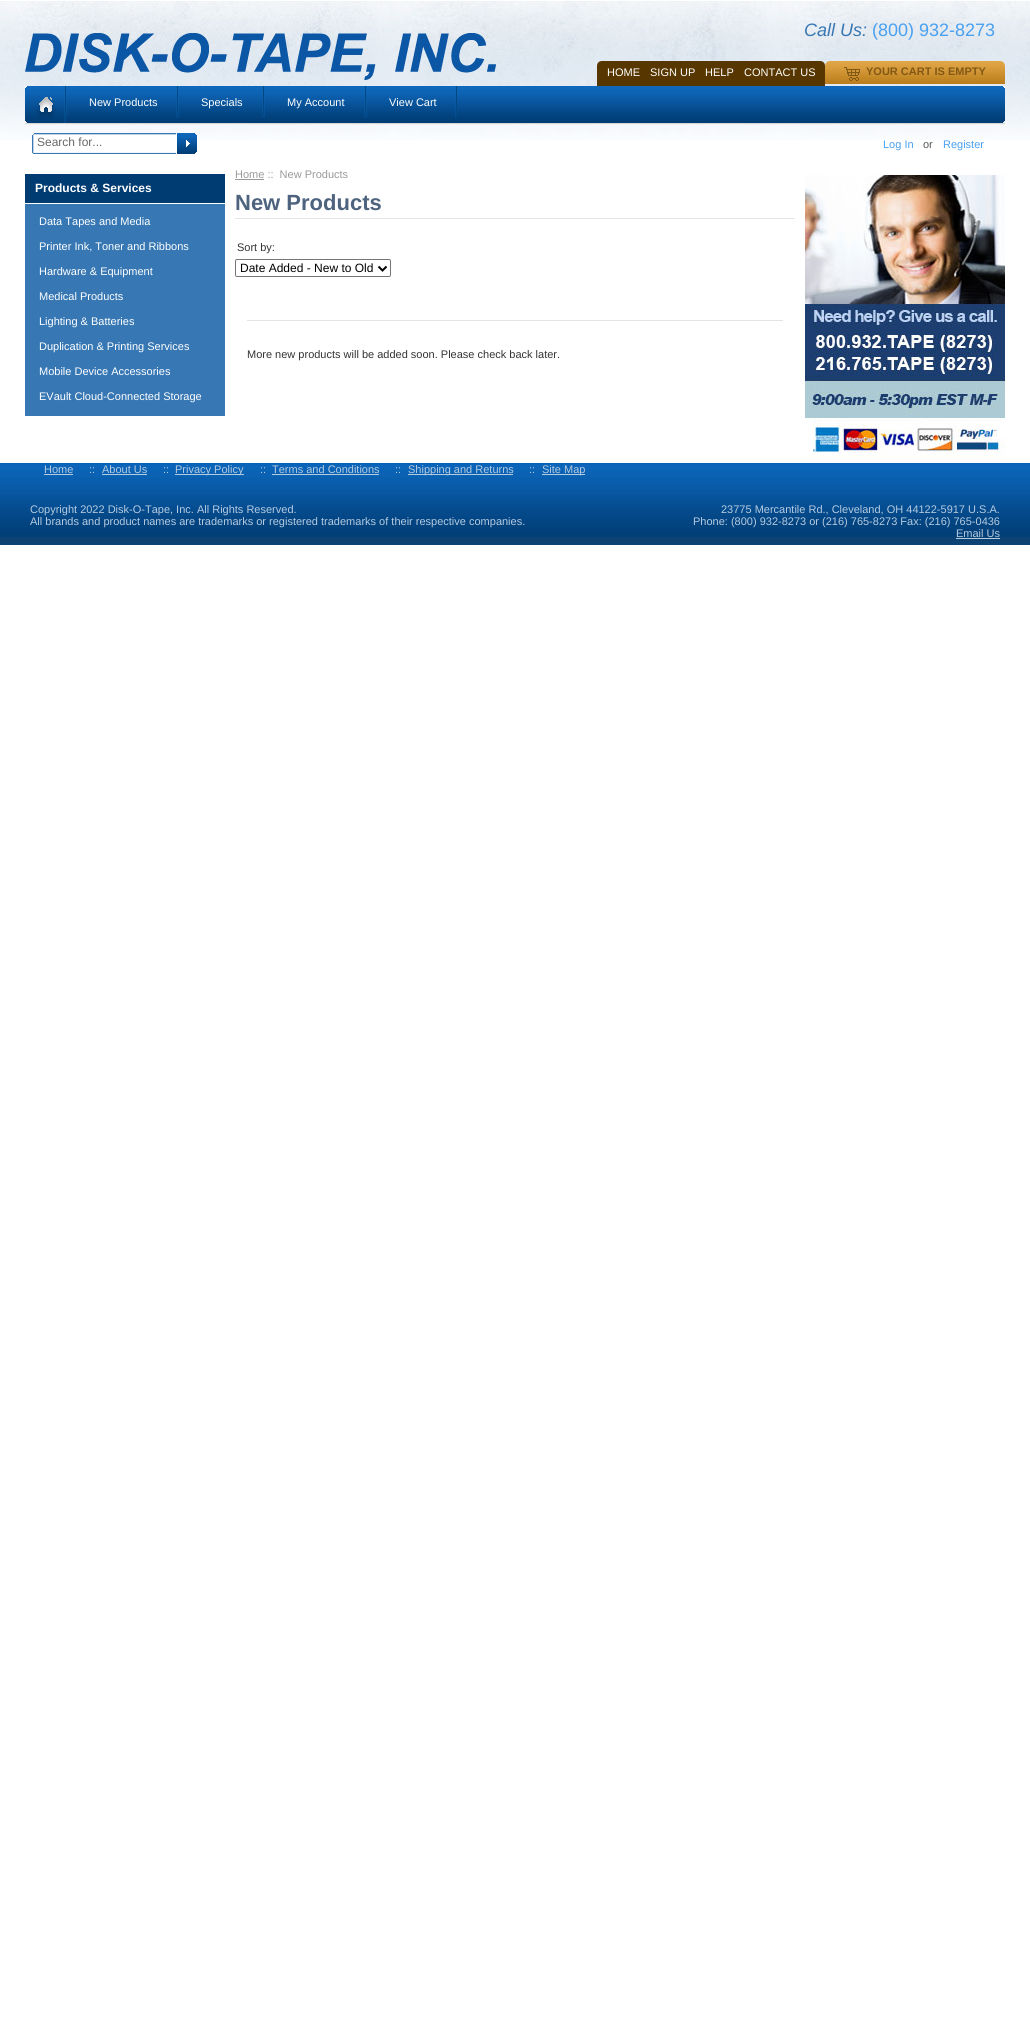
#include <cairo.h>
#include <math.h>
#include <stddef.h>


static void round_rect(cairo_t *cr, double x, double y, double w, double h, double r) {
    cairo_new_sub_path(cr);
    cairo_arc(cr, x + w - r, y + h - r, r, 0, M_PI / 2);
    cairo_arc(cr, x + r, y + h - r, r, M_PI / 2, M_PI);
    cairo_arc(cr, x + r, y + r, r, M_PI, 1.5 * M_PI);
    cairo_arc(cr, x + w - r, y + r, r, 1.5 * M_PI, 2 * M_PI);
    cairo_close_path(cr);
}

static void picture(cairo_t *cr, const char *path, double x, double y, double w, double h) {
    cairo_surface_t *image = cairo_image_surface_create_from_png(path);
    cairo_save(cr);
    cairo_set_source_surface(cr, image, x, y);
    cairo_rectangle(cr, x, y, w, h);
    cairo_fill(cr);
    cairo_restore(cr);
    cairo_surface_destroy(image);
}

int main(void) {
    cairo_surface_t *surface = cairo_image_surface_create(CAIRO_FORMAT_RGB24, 1030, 2036);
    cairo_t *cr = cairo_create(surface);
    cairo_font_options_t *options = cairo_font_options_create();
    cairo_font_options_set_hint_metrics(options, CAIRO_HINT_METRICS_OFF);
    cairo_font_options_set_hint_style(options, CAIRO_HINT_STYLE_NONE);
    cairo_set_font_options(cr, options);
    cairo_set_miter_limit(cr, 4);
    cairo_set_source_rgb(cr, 1, 1, 1);
    cairo_paint(cr);
    picture(cr, "img1.png", 0, 0, 1030, 140);
    cairo_select_font_face(cr, "Liberation Sans", CAIRO_FONT_SLANT_ITALIC, CAIRO_FONT_WEIGHT_NORMAL);
    cairo_set_font_size(cr, 18);
    cairo_set_source_rgb(cr, 0.212, 0.467, 0.706);
    cairo_move_to(cr, 804, 36);
    cairo_show_text(cr, "Call Us:");
    cairo_select_font_face(cr, "Liberation Sans", CAIRO_FONT_SLANT_NORMAL, CAIRO_FONT_WEIGHT_NORMAL);
    cairo_set_source_rgb(cr, 0.282, 0.627, 0.945);
    cairo_move_to(cr, 872, 36);
    cairo_show_text(cr, "(800) 932-8273");
    picture(cr, "img2.png", 25, 33, 471, 47);
    cairo_set_source_rgb(cr, 0.341, 0.212, 0);
    cairo_new_path(cr);
    cairo_move_to(cr, 602, 61);
    cairo_line_to(cr, 820, 61);
    cairo_curve_to(cr, 823, 61, 825, 63, 825, 66);
    cairo_line_to(cr, 825, 86);
    cairo_line_to(cr, 597, 86);
    cairo_line_to(cr, 597, 66);
    cairo_curve_to(cr, 597, 63, 599, 61, 602, 61);
    cairo_close_path(cr);
    cairo_fill(cr);
    cairo_set_font_size(cr, 11);
    cairo_set_source_rgb(cr, 1, 1, 1);
    cairo_move_to(cr, 607, 76);
    cairo_show_text(cr, "HOME");
    cairo_move_to(cr, 650, 76);
    cairo_show_text(cr, "SIGN UP");
    cairo_move_to(cr, 705, 76);
    cairo_show_text(cr, "HELP");
    cairo_move_to(cr, 744, 76);
    cairo_show_text(cr, "CONTACT US");
    picture(cr, "img3.png", 825, 61, 180, 23);
    picture(cr, "img4.png", 844, 67, 16, 14);
    cairo_select_font_face(cr, "Liberation Sans", CAIRO_FONT_SLANT_NORMAL, CAIRO_FONT_WEIGHT_BOLD);
    cairo_set_source_rgb(cr, 0.51, 0.345, 0.082);
    cairo_move_to(cr, 866, 75);
    cairo_show_text(cr, "YOUR CART IS EMPTY");
    picture(cr, "img5.png", 25, 86, 980, 39);
    cairo_set_source_rgb(cr, 0, 0.286, 0.518);
    cairo_rectangle(cr, 65, 86, 1, 37);
    cairo_fill(cr);
    picture(cr, "img6.png", 25, 86, 40, 37);
    picture(cr, "img7.png", 66, 97, 1, 21);
    cairo_rectangle(cr, 177, 86, 1, 32);
    cairo_fill(cr);
    picture(cr, "img8.png", 176, 99, 1, 19);
    cairo_select_font_face(cr, "Liberation Sans", CAIRO_FONT_SLANT_NORMAL, CAIRO_FONT_WEIGHT_NORMAL);
    cairo_set_source_rgb(cr, 1, 1, 1);
    cairo_move_to(cr, 89, 106);
    cairo_show_text(cr, "New Products");
    picture(cr, "img7.png", 178, 97, 1, 21);
    cairo_set_source_rgb(cr, 0, 0.286, 0.518);
    cairo_rectangle(cr, 263, 86, 1, 32);
    cairo_fill(cr);
    picture(cr, "img7.png", 262, 97, 1, 21);
    cairo_set_source_rgb(cr, 1, 1, 1);
    cairo_move_to(cr, 201, 106);
    cairo_show_text(cr, "Specials");
    picture(cr, "img7.png", 264, 97, 1, 21);
    cairo_set_source_rgb(cr, 0, 0.286, 0.518);
    cairo_rectangle(cr, 365, 86, 1, 32);
    cairo_fill(cr);
    picture(cr, "img7.png", 364, 97, 1, 21);
    cairo_set_source_rgb(cr, 1, 1, 1);
    cairo_move_to(cr, 287, 106);
    cairo_show_text(cr, "My Account");
    picture(cr, "img7.png", 366, 97, 1, 21);
    cairo_set_source_rgb(cr, 0, 0.286, 0.518);
    cairo_rectangle(cr, 456, 86, 1, 32);
    cairo_fill(cr);
    picture(cr, "img8.png", 455, 99, 1, 19);
    cairo_set_source_rgb(cr, 1, 1, 1);
    cairo_move_to(cr, 389, 106);
    cairo_show_text(cr, "View Cart");
    picture(cr, "img9.png", 1003, 86, 2, 37);
    picture(cr, "img10.png", 32, 133, 144, 21);
    cairo_set_font_size(cr, 12);
    cairo_set_source_rgb(cr, 0.412, 0.412, 0.412);
    cairo_move_to(cr, 37, 146);
    cairo_show_text(cr, "Search for...");
    picture(cr, "img11.png", 177, 133, 20, 21);
    cairo_set_font_size(cr, 11);
    cairo_set_source_rgb(cr, 0.282, 0.627, 0.945);
    cairo_move_to(cr, 883, 148);
    cairo_show_text(cr, "Log In");
    cairo_set_source_rgb(cr, 0.333, 0.341, 0.341);
    cairo_move_to(cr, 923, 148);
    cairo_show_text(cr, "or");
    cairo_set_source_rgb(cr, 0.282, 0.627, 0.945);
    cairo_move_to(cr, 943, 148);
    cairo_show_text(cr, "Register");
    cairo_set_source_rgb(cr, 0, 0.231, 0.447);
    cairo_rectangle(cr, 25, 174, 200, 29);
    cairo_fill(cr);
    cairo_select_font_face(cr, "Liberation Sans", CAIRO_FONT_SLANT_NORMAL, CAIRO_FONT_WEIGHT_BOLD);
    cairo_set_font_size(cr, 12);
    cairo_set_source_rgb(cr, 1, 1, 1);
    cairo_move_to(cr, 35, 192);
    cairo_show_text(cr, "Products & Services");
    cairo_set_source_rgb(cr, 0.212, 0.467, 0.706);
    cairo_rectangle(cr, 25, 204, 200, 212);
    cairo_fill(cr);
    cairo_select_font_face(cr, "Liberation Sans", CAIRO_FONT_SLANT_NORMAL, CAIRO_FONT_WEIGHT_NORMAL);
    cairo_set_font_size(cr, 11);
    cairo_set_source_rgb(cr, 1, 1, 1);
    cairo_move_to(cr, 39, 225);
    cairo_show_text(cr, "Data Tapes and Media");
    cairo_move_to(cr, 39, 250);
    cairo_show_text(cr, "Printer Ink, Toner and Ribbons");
    cairo_move_to(cr, 39, 275);
    cairo_show_text(cr, "Hardware & Equipment");
    cairo_move_to(cr, 39, 300);
    cairo_show_text(cr, "Medical Products");
    cairo_move_to(cr, 39, 325);
    cairo_show_text(cr, "Lighting & Batteries");
    cairo_move_to(cr, 39, 350);
    cairo_show_text(cr, "Duplication & Printing Services");
    cairo_move_to(cr, 39, 375);
    cairo_show_text(cr, "Mobile Device Accessories");
    cairo_move_to(cr, 39, 400);
    cairo_show_text(cr, "EVault Cloud-Connected Storage");
    cairo_set_source_rgb(cr, 0.6, 0.6, 0.6);
    cairo_move_to(cr, 235, 178);
    cairo_show_text(cr, "Home ::  New Products");
    cairo_rectangle(cr, 235, 179, 29, 1);
    cairo_fill(cr);
    cairo_set_source_rgb(cr, 0.902, 0.902, 0.902);
    cairo_rectangle(cr, 235, 218, 560, 1);
    cairo_fill(cr);
    cairo_select_font_face(cr, "Liberation Sans", CAIRO_FONT_SLANT_NORMAL, CAIRO_FONT_WEIGHT_BOLD);
    cairo_set_font_size(cr, 22);
    cairo_set_source_rgb(cr, 0.306, 0.388, 0.494);
    cairo_move_to(cr, 235, 210);
    cairo_show_text(cr, "New Products");
    cairo_select_font_face(cr, "Liberation Sans", CAIRO_FONT_SLANT_NORMAL, CAIRO_FONT_WEIGHT_NORMAL);
    cairo_set_font_size(cr, 11);
    cairo_set_source_rgb(cr, 0.2, 0.2, 0.2);
    cairo_move_to(cr, 237, 251);
    cairo_show_text(cr, "Sort by:");
    round_rect(cr, 235.5, 259.5, 155, 17, 1.5);
    cairo_set_source_rgb(cr, 0.463, 0.463, 0.463);
    cairo_set_line_width(cr, 1);
    cairo_stroke(cr);
    cairo_new_path(cr);
    cairo_move_to(cr, 378.5, 266.5);
    cairo_line_to(cr, 382.5, 270.5);
    cairo_line_to(cr, 386.5, 266.5);
    cairo_set_source_rgb(cr, 0, 0, 0);
    cairo_set_line_width(cr, 2);
    cairo_stroke(cr);
    cairo_set_font_size(cr, 12);
    cairo_move_to(cr, 240, 272);
    cairo_show_text(cr, "Date Added - New to Old");
    cairo_set_source_rgb(cr, 0.894, 0.894, 0.894);
    cairo_rectangle(cr, 247, 320, 536, 1);
    cairo_fill(cr);
    cairo_set_font_size(cr, 11);
    cairo_set_source_rgb(cr, 0.2, 0.2, 0.2);
    cairo_move_to(cr, 247, 358);
    cairo_show_text(cr, "More new products will be added soon. Please check back later.");
    picture(cr, "img12.png", 805, 175, 200, 284);
    cairo_set_source_rgb(cr, 0.047, 0.259, 0.455);
    cairo_rectangle(cr, 0, 537, 1030, 8);
    cairo_fill(cr);
    picture(cr, "img13.png", 0, 463, 1030, 74);
    cairo_set_source_rgb(cr, 0.71, 0.796, 0.878);
    cairo_move_to(cr, 44, 473);
    cairo_show_text(cr, "Home");
    cairo_rectangle(cr, 44, 474, 29, 1);
    cairo_fill(cr);
    cairo_move_to(cr, 89, 473);
    cairo_show_text(cr, "::");
    cairo_move_to(cr, 102, 473);
    cairo_show_text(cr, "About Us");
    cairo_rectangle(cr, 102, 474, 45, 1);
    cairo_fill(cr);
    cairo_move_to(cr, 163, 473);
    cairo_show_text(cr, "::");
    cairo_rectangle(cr, 175, 474, 69, 1);
    cairo_fill(cr);
    cairo_move_to(cr, 175, 473);
    cairo_show_text(cr, "Privacy Policy");
    cairo_move_to(cr, 260, 473);
    cairo_show_text(cr, "::");
    cairo_move_to(cr, 272, 473);
    cairo_show_text(cr, "Terms and Conditions");
    cairo_rectangle(cr, 272, 474, 107, 1);
    cairo_fill(cr);
    cairo_move_to(cr, 395, 473);
    cairo_show_text(cr, "::");
    cairo_rectangle(cr, 408, 474, 105, 1);
    cairo_fill(cr);
    cairo_move_to(cr, 408, 473);
    cairo_show_text(cr, "Shipping and Returns");
    cairo_move_to(cr, 529, 473);
    cairo_show_text(cr, "::");
    cairo_rectangle(cr, 542, 474, 43, 1);
    cairo_fill(cr);
    cairo_move_to(cr, 542, 473);
    cairo_show_text(cr, "Site Map");
    cairo_move_to(cr, 30, 513);
    cairo_show_text(cr, "Copyright 2022 Disk-O-Tape, Inc. All Rights Reserved.");
    cairo_move_to(cr, 30, 525);
    cairo_show_text(cr, "All brands and product names are trademarks or registered trademarks of their respective companies.");
    cairo_move_to(cr, 721, 513);
    cairo_show_text(cr, "23775 Mercantile Rd., Cleveland, OH 44122-5917 U.S.A.");
    cairo_move_to(cr, 693, 525);
    cairo_show_text(cr, "Phone: (800) 932-8273 or (216) 765-8273 Fax: (216) 765-0436");
    cairo_move_to(cr, 956, 537);
    cairo_show_text(cr, "Email Us");
    cairo_rectangle(cr, 956, 538, 44, 1);
    cairo_fill(cr);
    cairo_surface_write_to_png(surface, "page.png");
    cairo_font_options_destroy(options);
    cairo_destroy(cr);
    cairo_surface_destroy(surface);
    return 0;
}
